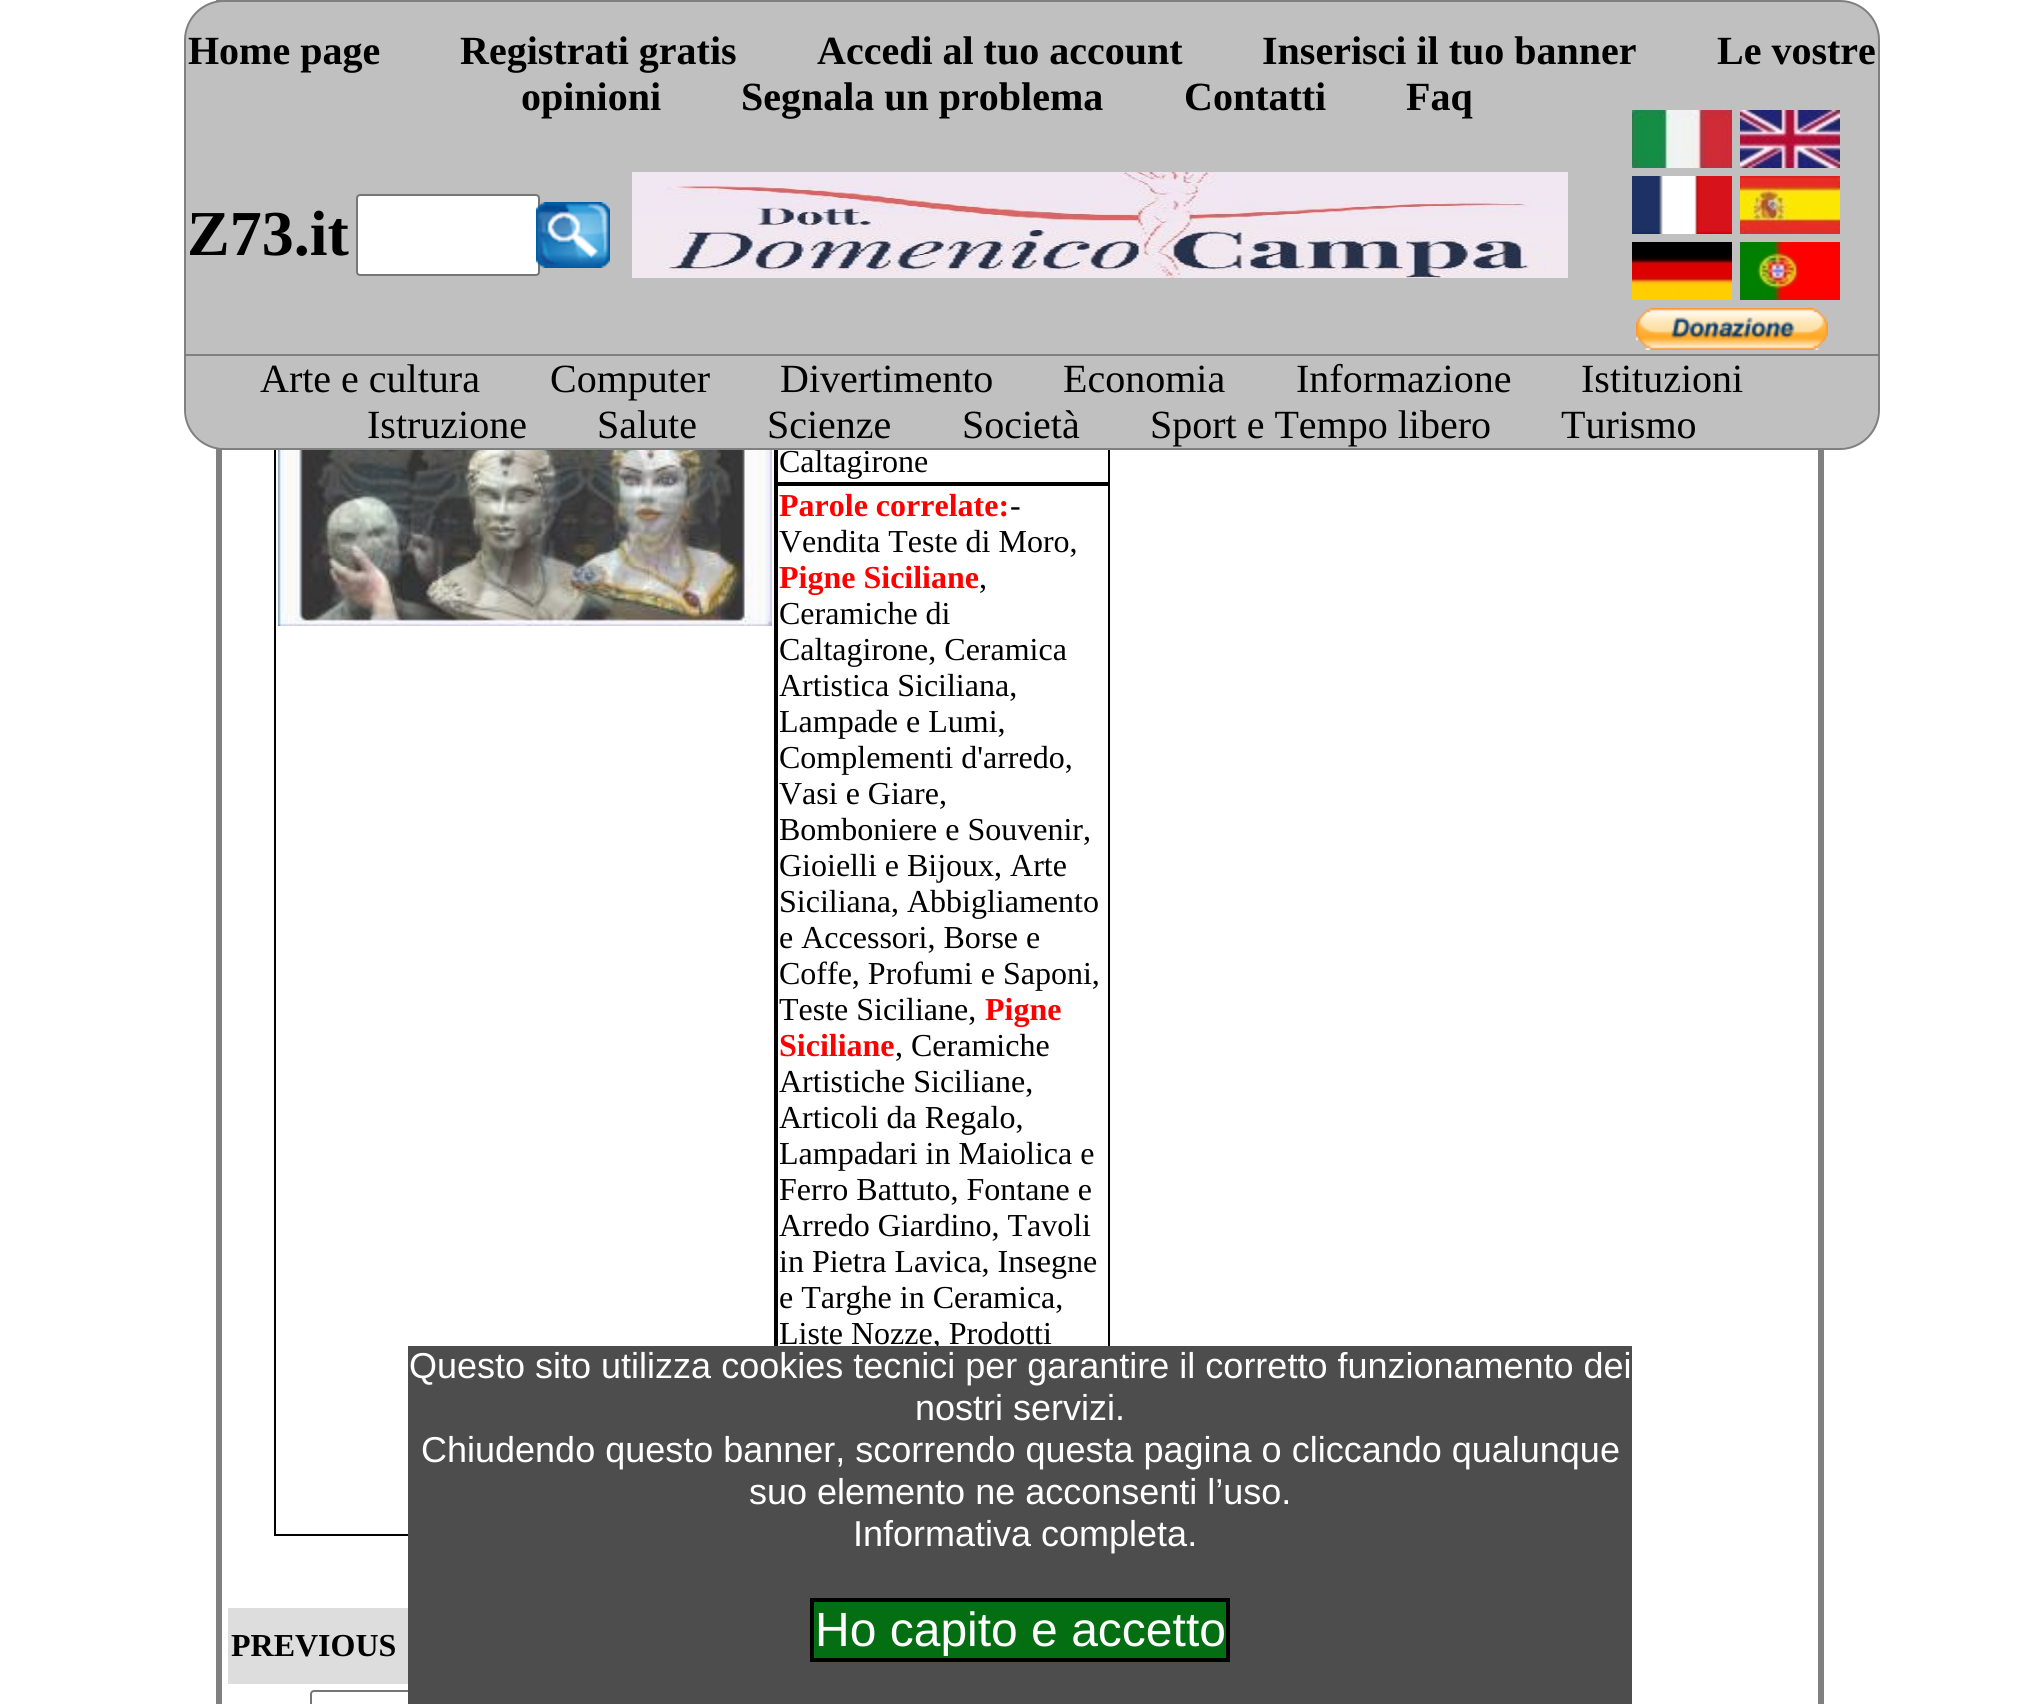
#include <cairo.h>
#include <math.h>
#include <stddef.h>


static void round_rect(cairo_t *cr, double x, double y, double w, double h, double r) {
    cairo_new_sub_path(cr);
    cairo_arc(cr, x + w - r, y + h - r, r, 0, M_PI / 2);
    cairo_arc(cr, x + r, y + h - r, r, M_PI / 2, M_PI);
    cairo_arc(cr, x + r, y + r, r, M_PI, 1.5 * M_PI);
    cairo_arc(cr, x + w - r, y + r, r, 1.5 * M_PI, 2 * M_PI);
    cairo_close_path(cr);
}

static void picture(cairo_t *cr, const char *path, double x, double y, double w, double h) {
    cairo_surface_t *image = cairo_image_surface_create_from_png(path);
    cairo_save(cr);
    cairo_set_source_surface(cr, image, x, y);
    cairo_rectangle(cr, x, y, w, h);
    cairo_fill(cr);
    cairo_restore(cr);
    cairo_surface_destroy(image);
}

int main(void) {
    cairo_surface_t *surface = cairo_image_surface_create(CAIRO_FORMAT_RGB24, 2039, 1704);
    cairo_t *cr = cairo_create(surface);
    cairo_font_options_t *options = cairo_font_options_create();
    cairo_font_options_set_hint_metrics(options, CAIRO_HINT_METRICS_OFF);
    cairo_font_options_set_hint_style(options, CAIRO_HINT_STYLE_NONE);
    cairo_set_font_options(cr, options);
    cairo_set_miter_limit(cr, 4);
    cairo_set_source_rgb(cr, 1, 1, 1);
    cairo_paint(cr);
    cairo_rectangle(cr, 219, -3, 1602, 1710);
    cairo_set_source_rgb(cr, 0.502, 0.502, 0.502);
    cairo_set_line_width(cr, 6);
    cairo_stroke(cr);
    cairo_rectangle(cr, 275, -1, 500, 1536);
    cairo_set_source_rgb(cr, 0, 0, 0);
    cairo_set_line_width(cr, 2);
    cairo_stroke(cr);
    cairo_rectangle(cr, 777, -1, 332, 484);
    cairo_stroke(cr);
    cairo_set_source_rgb(cr, 0.753, 0.753, 0.753);
    cairo_new_path(cr);
    cairo_move_to(cr, 224, 1);
    cairo_line_to(cr, 1840, 1);
    cairo_curve_to(cr, 1861.5, 1, 1879, 18.5, 1879, 40);
    cairo_line_to(cr, 1879, 359);
    cairo_line_to(cr, 185, 359);
    cairo_line_to(cr, 185, 40);
    cairo_curve_to(cr, 185, 18.5, 202.5, 1, 224, 1);
    cairo_close_path(cr);
    cairo_fill_preserve(cr);
    cairo_set_source_rgb(cr, 0.502, 0.502, 0.502);
    cairo_stroke(cr);
    cairo_select_font_face(cr, "Liberation Serif", CAIRO_FONT_SLANT_NORMAL, CAIRO_FONT_WEIGHT_BOLD);
    cairo_set_font_size(cr, 40);
    cairo_set_source_rgb(cr, 0, 0, 0);
    cairo_move_to(cr, 188, 64);
    cairo_show_text(cr, "Home page");
    cairo_move_to(cr, 460, 64);
    cairo_show_text(cr, "Registrati gratis");
    cairo_move_to(cr, 817, 64);
    cairo_show_text(cr, "Accedi al tuo account");
    cairo_move_to(cr, 1262, 64);
    cairo_show_text(cr, "Inserisci il tuo banner");
    cairo_move_to(cr, 1717, 64);
    cairo_show_text(cr, "Le vostre");
    cairo_move_to(cr, 521, 110);
    cairo_show_text(cr, "opinioni");
    cairo_move_to(cr, 741, 110);
    cairo_show_text(cr, "Segnala un problema");
    cairo_move_to(cr, 1184, 110);
    cairo_show_text(cr, "Contatti");
    cairo_move_to(cr, 1406, 110);
    cairo_show_text(cr, "Faq");
    cairo_set_font_size(cr, 64);
    cairo_move_to(cr, 187, 255);
    cairo_show_text(cr, "Z73.it");
    cairo_set_source_rgb(cr, 1, 1, 1);
    round_rect(cr, 357, 195, 182, 80, 3);
    cairo_fill_preserve(cr);
    cairo_set_source_rgb(cr, 0.463, 0.463, 0.463);
    cairo_stroke(cr);
    picture(cr, "img1.png", 536, 202, 74, 66);
    picture(cr, "img2.png", 632, 172, 936, 106);
    picture(cr, "img3.png", 1632, 110, 100, 58);
    picture(cr, "img4.png", 1740, 110, 100, 58);
    picture(cr, "img5.png", 1632, 176, 100, 58);
    picture(cr, "img6.png", 1740, 176, 100, 58);
    picture(cr, "img7.png", 1632, 242, 100, 58);
    picture(cr, "img8.png", 1740, 242, 100, 58);
    picture(cr, "img9.png", 1636, 308, 192, 42);
    cairo_select_font_face(cr, "Liberation Serif", CAIRO_FONT_SLANT_NORMAL, CAIRO_FONT_WEIGHT_NORMAL);
    cairo_set_font_size(cr, 32);
    cairo_set_source_rgb(cr, 0, 0, 0);
    cairo_move_to(cr, 779, 472);
    cairo_show_text(cr, "Caltagirone");
    cairo_set_source_rgb(cr, 0.753, 0.753, 0.753);
    cairo_new_path(cr);
    cairo_move_to(cr, 185, 355);
    cairo_line_to(cr, 1879, 355);
    cairo_line_to(cr, 1879, 410);
    cairo_curve_to(cr, 1879, 431.5, 1861.5, 449, 1840, 449);
    cairo_line_to(cr, 224, 449);
    cairo_curve_to(cr, 202.5, 449, 185, 431.5, 185, 410);
    cairo_close_path(cr);
    cairo_fill_preserve(cr);
    cairo_set_source_rgb(cr, 0.502, 0.502, 0.502);
    cairo_stroke(cr);
    cairo_set_source_rgb(cr, 0.753, 0.753, 0.753);
    cairo_new_path(cr);
    cairo_move_to(cr, 186, 356);
    cairo_line_to(cr, 1878, 356);
    cairo_line_to(cr, 1878, 408);
    cairo_curve_to(cr, 1878, 430, 1860, 448, 1838, 448);
    cairo_line_to(cr, 226, 448);
    cairo_curve_to(cr, 204, 448, 186, 430, 186, 408);
    cairo_close_path(cr);
    cairo_fill(cr);
    cairo_set_font_size(cr, 40);
    cairo_set_source_rgb(cr, 0, 0, 0);
    cairo_move_to(cr, 260, 392);
    cairo_show_text(cr, "Arte e cultura");
    cairo_move_to(cr, 550, 392);
    cairo_show_text(cr, "Computer");
    cairo_move_to(cr, 780, 392);
    cairo_show_text(cr, "Divertimento");
    cairo_move_to(cr, 1063, 392);
    cairo_show_text(cr, "Economia");
    cairo_move_to(cr, 1296, 392);
    cairo_show_text(cr, "Informazione");
    cairo_move_to(cr, 1581, 392);
    cairo_show_text(cr, "Istituzioni");
    cairo_move_to(cr, 367, 438);
    cairo_show_text(cr, "Istruzione");
    cairo_move_to(cr, 597, 438);
    cairo_show_text(cr, "Salute");
    cairo_move_to(cr, 767, 438);
    cairo_show_text(cr, "Scienze");
    cairo_move_to(cr, 962, 438);
    cairo_show_text(cr, "Società");
    cairo_move_to(cr, 1150, 438);
    cairo_show_text(cr, "Sport e Tempo libero");
    cairo_move_to(cr, 1561, 438);
    cairo_show_text(cr, "Turismo");
    picture(cr, "img10.png", 278, 450, 494, 176);
    cairo_rectangle(cr, 777, 485, 332, 1050);
    cairo_stroke(cr);
    cairo_select_font_face(cr, "Liberation Serif", CAIRO_FONT_SLANT_NORMAL, CAIRO_FONT_WEIGHT_BOLD);
    cairo_set_font_size(cr, 32);
    cairo_set_source_rgb(cr, 1, 0, 0);
    cairo_move_to(cr, 779, 516);
    cairo_show_text(cr, "Parole correlate:");
    cairo_select_font_face(cr, "Liberation Serif", CAIRO_FONT_SLANT_NORMAL, CAIRO_FONT_WEIGHT_NORMAL);
    cairo_set_source_rgb(cr, 0, 0, 0);
    cairo_move_to(cr, 1010, 516);
    cairo_show_text(cr, "-");
    cairo_move_to(cr, 779, 552);
    cairo_show_text(cr, "Vendita Teste di Moro,");
    cairo_select_font_face(cr, "Liberation Serif", CAIRO_FONT_SLANT_NORMAL, CAIRO_FONT_WEIGHT_BOLD);
    cairo_set_source_rgb(cr, 1, 0, 0);
    cairo_move_to(cr, 779, 588);
    cairo_show_text(cr, "Pigne Siciliane");
    cairo_select_font_face(cr, "Liberation Serif", CAIRO_FONT_SLANT_NORMAL, CAIRO_FONT_WEIGHT_NORMAL);
    cairo_set_source_rgb(cr, 0, 0, 0);
    cairo_move_to(cr, 979, 588);
    cairo_show_text(cr, ",");
    cairo_move_to(cr, 779, 624);
    cairo_show_text(cr, "Ceramiche di");
    cairo_move_to(cr, 779, 660);
    cairo_show_text(cr, "Caltagirone, Ceramica");
    cairo_move_to(cr, 779, 696);
    cairo_show_text(cr, "Artistica Siciliana,");
    cairo_move_to(cr, 779, 732);
    cairo_show_text(cr, "Lampade e Lumi,");
    cairo_move_to(cr, 779, 768);
    cairo_show_text(cr, "Complementi d'arredo,");
    cairo_move_to(cr, 779, 804);
    cairo_show_text(cr, "Vasi e Giare,");
    cairo_move_to(cr, 779, 840);
    cairo_show_text(cr, "Bomboniere e Souvenir,");
    cairo_move_to(cr, 779, 876);
    cairo_show_text(cr, "Gioielli e Bijoux, Arte");
    cairo_move_to(cr, 779, 912);
    cairo_show_text(cr, "Siciliana, Abbigliamento");
    cairo_move_to(cr, 779, 948);
    cairo_show_text(cr, "e Accessori, Borse e");
    cairo_move_to(cr, 779, 984);
    cairo_show_text(cr, "Coffe, Profumi e Saponi,");
    cairo_move_to(cr, 779, 1020);
    cairo_show_text(cr, "Teste Siciliane,");
    cairo_select_font_face(cr, "Liberation Serif", CAIRO_FONT_SLANT_NORMAL, CAIRO_FONT_WEIGHT_BOLD);
    cairo_set_source_rgb(cr, 1, 0, 0);
    cairo_move_to(cr, 985, 1020);
    cairo_show_text(cr, "Pigne");
    cairo_move_to(cr, 779, 1056);
    cairo_show_text(cr, "Siciliane");
    cairo_select_font_face(cr, "Liberation Serif", CAIRO_FONT_SLANT_NORMAL, CAIRO_FONT_WEIGHT_NORMAL);
    cairo_set_source_rgb(cr, 0, 0, 0);
    cairo_move_to(cr, 895, 1056);
    cairo_show_text(cr, ", Ceramiche");
    cairo_move_to(cr, 779, 1092);
    cairo_show_text(cr, "Artistiche Siciliane,");
    cairo_move_to(cr, 779, 1128);
    cairo_show_text(cr, "Articoli da Regalo,");
    cairo_move_to(cr, 779, 1164);
    cairo_show_text(cr, "Lampadari in Maiolica e");
    cairo_move_to(cr, 779, 1200);
    cairo_show_text(cr, "Ferro Battuto, Fontane e");
    cairo_move_to(cr, 779, 1236);
    cairo_show_text(cr, "Arredo Giardino, Tavoli");
    cairo_move_to(cr, 779, 1272);
    cairo_show_text(cr, "in Pietra Lavica, Insegne");
    cairo_move_to(cr, 779, 1308);
    cairo_show_text(cr, "e Targhe in Ceramica,");
    cairo_move_to(cr, 779, 1344);
    cairo_show_text(cr, "Liste Nozze, Prodotti");
    cairo_set_source_rgb(cr, 0.867, 0.867, 0.867);
    cairo_rectangle(cr, 228, 1608, 180, 76);
    cairo_fill(cr);
    cairo_select_font_face(cr, "Liberation Serif", CAIRO_FONT_SLANT_NORMAL, CAIRO_FONT_WEIGHT_BOLD);
    cairo_set_source_rgb(cr, 0, 0, 0);
    cairo_move_to(cr, 231, 1656);
    cairo_show_text(cr, "PREVIOUS");
    round_rect(cr, 311, 1691, 688, 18, 3);
    cairo_set_source_rgb(cr, 0.463, 0.463, 0.463);
    cairo_stroke(cr);
    cairo_set_source_rgb(cr, 0.302, 0.302, 0.302);
    cairo_rectangle(cr, 408, 1346, 1224, 358);
    cairo_fill(cr);
    cairo_select_font_face(cr, "Liberation Sans", CAIRO_FONT_SLANT_NORMAL, CAIRO_FONT_WEIGHT_NORMAL);
    cairo_set_font_size(cr, 36);
    cairo_set_source_rgb(cr, 1, 1, 1);
    cairo_move_to(cr, 409, 1378);
    cairo_show_text(cr, "Questo sito utilizza cookies tecnici per garantire il corretto funzionamento dei");
    cairo_move_to(cr, 915, 1420);
    cairo_show_text(cr, "nostri servizi.");
    cairo_move_to(cr, 421, 1462);
    cairo_show_text(cr, "Chiudendo questo banner, scorrendo questa pagina o cliccando qualunque");
    cairo_move_to(cr, 749, 1504);
    cairo_show_text(cr, "suo elemento ne acconsenti l’uso.");
    cairo_move_to(cr, 853, 1546);
    cairo_show_text(cr, "Informativa completa.");
    cairo_set_source_rgb(cr, 0.016, 0.431, 0.075);
    cairo_rectangle(cr, 812, 1600, 416, 60);
    cairo_fill_preserve(cr);
    cairo_set_source_rgb(cr, 0, 0, 0);
    cairo_set_line_width(cr, 4);
    cairo_stroke(cr);
    cairo_set_font_size(cr, 48);
    cairo_set_source_rgb(cr, 1, 1, 1);
    cairo_move_to(cr, 815, 1646);
    cairo_show_text(cr, "Ho capito e accetto");
    cairo_surface_write_to_png(surface, "page.png");
    cairo_font_options_destroy(options);
    cairo_destroy(cr);
    cairo_surface_destroy(surface);
    return 0;
}
